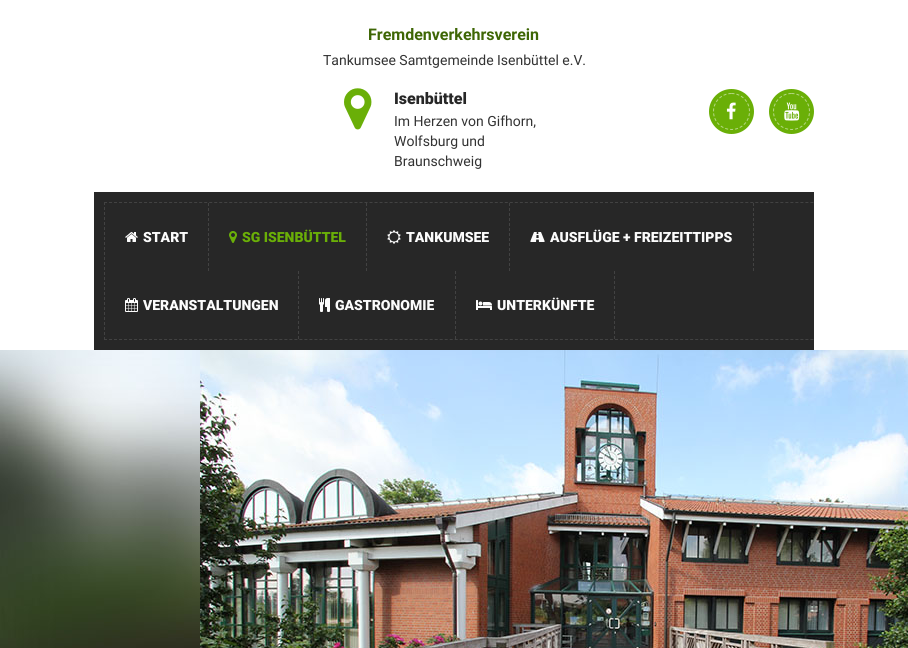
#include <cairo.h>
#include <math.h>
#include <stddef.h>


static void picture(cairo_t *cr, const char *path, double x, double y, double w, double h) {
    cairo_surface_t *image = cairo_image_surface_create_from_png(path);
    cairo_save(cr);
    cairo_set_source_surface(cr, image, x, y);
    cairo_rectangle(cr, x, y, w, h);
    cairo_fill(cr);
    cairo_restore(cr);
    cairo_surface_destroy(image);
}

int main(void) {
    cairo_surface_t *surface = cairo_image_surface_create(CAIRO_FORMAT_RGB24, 908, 648);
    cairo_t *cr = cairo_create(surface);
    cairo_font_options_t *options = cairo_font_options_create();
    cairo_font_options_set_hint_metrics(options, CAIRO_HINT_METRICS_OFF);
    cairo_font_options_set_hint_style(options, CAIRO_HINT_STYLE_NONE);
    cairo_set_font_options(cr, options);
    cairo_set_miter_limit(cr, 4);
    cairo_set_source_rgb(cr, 1, 1, 1);
    cairo_paint(cr);
    cairo_select_font_face(cr, "Roboto", CAIRO_FONT_SLANT_NORMAL, CAIRO_FONT_WEIGHT_BOLD);
    cairo_set_font_size(cr, 16);
    cairo_set_source_rgb(cr, 0.243, 0.4, 0.02);
    cairo_move_to(cr, 368, 40);
    cairo_show_text(cr, "Fremdenverkehrsverein");
    cairo_select_font_face(cr, "Roboto", CAIRO_FONT_SLANT_NORMAL, CAIRO_FONT_WEIGHT_NORMAL);
    cairo_set_font_size(cr, 14);
    cairo_set_source_rgb(cr, 0.2, 0.2, 0.2);
    cairo_move_to(cr, 323, 65);
    cairo_show_text(cr, "Tankumsee Samtgemeinde Isenbüttel e.V.");
    picture(cr, "img1.png", 344, 88, 28, 42);
    cairo_select_font_face(cr, "Roboto Black", CAIRO_FONT_SLANT_NORMAL, CAIRO_FONT_WEIGHT_NORMAL);
    cairo_set_font_size(cr, 16);
    cairo_set_source_rgb(cr, 0.153, 0.153, 0.153);
    cairo_move_to(cr, 394, 104);
    cairo_show_text(cr, "Isenbüttel");
    cairo_select_font_face(cr, "Roboto", CAIRO_FONT_SLANT_NORMAL, CAIRO_FONT_WEIGHT_NORMAL);
    cairo_set_font_size(cr, 14);
    cairo_set_source_rgb(cr, 0.2, 0.2, 0.2);
    cairo_move_to(cr, 394, 126);
    cairo_show_text(cr, "Im Herzen von Gifhorn,");
    cairo_move_to(cr, 394, 146);
    cairo_show_text(cr, "Wolfsburg und");
    cairo_move_to(cr, 394, 166);
    cairo_show_text(cr, "Braunschweig");
    cairo_set_source_rgb(cr, 0.416, 0.686, 0.031);
    cairo_new_path(cr);
    cairo_arc(cr, 731.5, 111.5, 22.5, 0, 2 * M_PI);
    cairo_fill(cr);
    cairo_new_path(cr);
    cairo_move_to(cr, 731.5, 93.5);
    cairo_curve_to(cr, 741.5, 93.5, 749.5, 101.5, 749.5, 111.5);
    cairo_curve_to(cr, 749.5, 121.5, 741.5, 129.5, 731.5, 129.5);
    cairo_curve_to(cr, 721.5, 129.5, 713.5, 121.5, 713.5, 111.5);
    cairo_curve_to(cr, 713.5, 101.5, 721.5, 93.5, 731.5, 93.5);
    cairo_close_path(cr);
    cairo_set_source_rgb(cr, 0.71, 0.843, 0.518);
    cairo_set_line_width(cr, 1);
    cairo_set_dash(cr, (double[]){3, 2}, 2, 0);
    cairo_stroke(cr);
    picture(cr, "img2.png", 726, 102, 10, 18);
    cairo_set_source_rgb(cr, 0.416, 0.686, 0.031);
    cairo_arc(cr, 791.5, 111.5, 22.5, 0, 2 * M_PI);
    cairo_fill(cr);
    cairo_new_path(cr);
    cairo_move_to(cr, 791.5, 93.5);
    cairo_curve_to(cr, 801.5, 93.5, 809.5, 101.5, 809.5, 111.5);
    cairo_curve_to(cr, 809.5, 121.5, 801.5, 129.5, 791.5, 129.5);
    cairo_curve_to(cr, 781.5, 129.5, 773.5, 121.5, 773.5, 111.5);
    cairo_curve_to(cr, 773.5, 101.5, 781.5, 93.5, 791.5, 93.5);
    cairo_close_path(cr);
    cairo_set_source_rgb(cr, 0.71, 0.843, 0.518);
    cairo_stroke(cr);
    picture(cr, "img3.png", 784, 102, 16, 19);
    cairo_set_source_rgb(cr, 0.153, 0.153, 0.153);
    cairo_rectangle(cr, 94, 192, 720, 158);
    cairo_fill(cr);
    cairo_new_path(cr);
    cairo_move_to(cr, 104, 202.5);
    cairo_line_to(cr, 814, 202.5);
    cairo_set_source_rgb(cr, 0.259, 0.259, 0.259);
    cairo_set_dash(cr, (double[]){3, 2.01}, 2, 0);
    cairo_stroke(cr);
    cairo_new_path(cr);
    cairo_move_to(cr, 104, 339.5);
    cairo_line_to(cr, 814, 339.5);
    cairo_stroke(cr);
    cairo_new_path(cr);
    cairo_move_to(cr, 104.5, 202);
    cairo_line_to(cr, 104.5, 340);
    cairo_set_dash(cr, (double[]){3, 2}, 2, 0);
    cairo_stroke(cr);
    cairo_new_path(cr);
    cairo_move_to(cr, 208.5, 203);
    cairo_line_to(cr, 208.5, 271);
    cairo_stroke(cr);
    picture(cr, "img4.png", 125, 232, 13, 10);
    cairo_select_font_face(cr, "Roboto Black", CAIRO_FONT_SLANT_NORMAL, CAIRO_FONT_WEIGHT_NORMAL);
    cairo_set_source_rgb(cr, 0.988, 0.988, 0.988);
    cairo_move_to(cr, 143, 242);
    cairo_show_text(cr, "START");
    cairo_new_path(cr);
    cairo_move_to(cr, 366.5, 203);
    cairo_line_to(cr, 366.5, 271);
    cairo_set_source_rgb(cr, 0.259, 0.259, 0.259);
    cairo_stroke(cr);
    picture(cr, "img5.png", 229, 231, 8, 12);
    cairo_set_source_rgb(cr, 0.416, 0.686, 0.031);
    cairo_move_to(cr, 242, 242);
    cairo_show_text(cr, "SG ISENBÜTTEL");
    cairo_new_path(cr);
    cairo_move_to(cr, 509.5, 203);
    cairo_line_to(cr, 509.5, 271);
    cairo_set_source_rgb(cr, 0.259, 0.259, 0.259);
    cairo_stroke(cr);
    picture(cr, "img6.png", 387, 230, 14, 14);
    cairo_set_source_rgb(cr, 0.988, 0.988, 0.988);
    cairo_move_to(cr, 406, 242);
    cairo_show_text(cr, "TANKUMSEE");
    cairo_new_path(cr);
    cairo_move_to(cr, 753.5, 203);
    cairo_line_to(cr, 753.5, 271);
    cairo_set_source_rgb(cr, 0.259, 0.259, 0.259);
    cairo_stroke(cr);
    picture(cr, "img7.png", 530, 232, 15, 10);
    cairo_set_source_rgb(cr, 0.988, 0.988, 0.988);
    cairo_move_to(cr, 550, 242);
    cairo_show_text(cr, "AUSFLÜGE + FREIZEITTIPPS");
    cairo_new_path(cr);
    cairo_move_to(cr, 298.5, 271);
    cairo_line_to(cr, 298.5, 339);
    cairo_set_source_rgb(cr, 0.259, 0.259, 0.259);
    cairo_stroke(cr);
    picture(cr, "img8.png", 125, 298, 13, 14);
    cairo_set_source_rgb(cr, 0.988, 0.988, 0.988);
    cairo_move_to(cr, 143, 310);
    cairo_show_text(cr, "VERANSTALTUNGEN");
    cairo_new_path(cr);
    cairo_move_to(cr, 455.5, 271);
    cairo_line_to(cr, 455.5, 339);
    cairo_set_source_rgb(cr, 0.259, 0.259, 0.259);
    cairo_stroke(cr);
    picture(cr, "img9.png", 319, 298, 11, 14);
    cairo_set_source_rgb(cr, 0.988, 0.988, 0.988);
    cairo_move_to(cr, 335, 310);
    cairo_show_text(cr, "GASTRONOMIE");
    cairo_new_path(cr);
    cairo_move_to(cr, 614.5, 271);
    cairo_line_to(cr, 614.5, 339);
    cairo_set_source_rgb(cr, 0.259, 0.259, 0.259);
    cairo_stroke(cr);
    picture(cr, "img10.png", 476, 300, 16, 10);
    cairo_set_source_rgb(cr, 0.988, 0.988, 0.988);
    cairo_move_to(cr, 497, 310);
    cairo_show_text(cr, "UNTERKÜNFTE");
    picture(cr, "img11.png", 0, 350, 908, 298);
    cairo_surface_write_to_png(surface, "page.png");
    cairo_font_options_destroy(options);
    cairo_destroy(cr);
    cairo_surface_destroy(surface);
    return 0;
}
